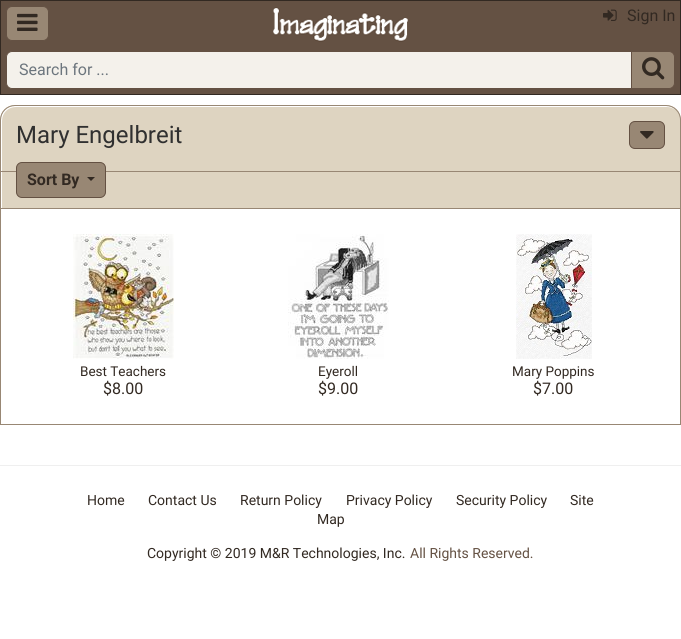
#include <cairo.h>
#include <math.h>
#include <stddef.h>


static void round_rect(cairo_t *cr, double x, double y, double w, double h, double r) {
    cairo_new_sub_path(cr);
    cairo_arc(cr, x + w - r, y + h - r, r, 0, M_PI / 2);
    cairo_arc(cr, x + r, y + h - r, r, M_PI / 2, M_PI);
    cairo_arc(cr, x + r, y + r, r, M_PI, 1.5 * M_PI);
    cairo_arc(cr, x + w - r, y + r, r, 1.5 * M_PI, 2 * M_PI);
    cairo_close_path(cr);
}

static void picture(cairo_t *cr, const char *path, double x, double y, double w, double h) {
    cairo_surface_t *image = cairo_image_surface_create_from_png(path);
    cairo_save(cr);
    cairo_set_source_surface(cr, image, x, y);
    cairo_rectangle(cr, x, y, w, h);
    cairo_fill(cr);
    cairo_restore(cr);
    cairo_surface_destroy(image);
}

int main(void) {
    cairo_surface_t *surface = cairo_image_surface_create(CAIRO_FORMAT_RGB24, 681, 639);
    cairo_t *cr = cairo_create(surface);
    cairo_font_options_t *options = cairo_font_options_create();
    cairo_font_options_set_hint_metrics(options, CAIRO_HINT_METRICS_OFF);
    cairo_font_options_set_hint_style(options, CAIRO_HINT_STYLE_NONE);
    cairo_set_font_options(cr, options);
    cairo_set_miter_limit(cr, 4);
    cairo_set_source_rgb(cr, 1, 1, 1);
    cairo_paint(cr);
    cairo_set_source_rgb(cr, 0.392, 0.318, 0.263);
    cairo_rectangle(cr, 1, 1, 679, 93);
    cairo_fill(cr);
    picture(cr, "img1.png", 273, 7, 135, 35);
    cairo_rectangle(cr, 0.5, 0.5, 680, 94);
    cairo_set_source_rgb(cr, 0.196, 0.161, 0.133);
    cairo_set_line_width(cr, 1);
    cairo_stroke(cr);
    cairo_set_source_rgb(cr, 0.596, 0.529, 0.455);
    round_rect(cr, 6.5, 6.5, 42, 34, 5.5);
    cairo_fill_preserve(cr);
    cairo_set_source_rgb(cr, 0.392, 0.318, 0.263);
    cairo_stroke(cr);
    picture(cr, "img2.png", 17, 13, 21, 18);
    picture(cr, "img3.png", 603, 9, 14, 12);
    cairo_select_font_face(cr, "Roboto", CAIRO_FONT_SLANT_NORMAL, CAIRO_FONT_WEIGHT_NORMAL);
    cairo_set_font_size(cr, 16);
    cairo_set_source_rgb(cr, 0.196, 0.161, 0.133);
    cairo_move_to(cr, 627, 21);
    cairo_show_text(cr, "Sign In");
    cairo_set_source_rgb(cr, 0.957, 0.945, 0.918);
    cairo_new_path(cr);
    cairo_move_to(cr, 12, 51.5);
    cairo_line_to(cr, 631.5, 51.5);
    cairo_line_to(cr, 631.5, 88.5);
    cairo_line_to(cr, 12, 88.5);
    cairo_curve_to(cr, 9, 88.5, 6.5, 86, 6.5, 83);
    cairo_line_to(cr, 6.5, 57);
    cairo_curve_to(cr, 6.5, 54, 9, 51.5, 12, 51.5);
    cairo_close_path(cr);
    cairo_fill_preserve(cr);
    cairo_set_source_rgb(cr, 0.392, 0.318, 0.263);
    cairo_stroke(cr);
    cairo_set_source_rgb(cr, 0.424, 0.459, 0.49);
    cairo_move_to(cr, 19, 75);
    cairo_show_text(cr, "Search for ...");
    cairo_set_source_rgb(cr, 0.596, 0.529, 0.455);
    cairo_new_path(cr);
    cairo_move_to(cr, 631.5, 51.5);
    cairo_line_to(cr, 669, 51.5);
    cairo_curve_to(cr, 672, 51.5, 674.5, 54, 674.5, 57);
    cairo_line_to(cr, 674.5, 83);
    cairo_curve_to(cr, 674.5, 86, 672, 88.5, 669, 88.5);
    cairo_line_to(cr, 631.5, 88.5);
    cairo_close_path(cr);
    cairo_fill_preserve(cr);
    cairo_set_source_rgb(cr, 0.392, 0.318, 0.263);
    cairo_stroke(cr);
    picture(cr, "img4.png", 642, 57, 23, 23);
    cairo_set_source_rgb(cr, 0.871, 0.831, 0.757);
    cairo_new_path(cr);
    cairo_move_to(cr, 15, 105);
    cairo_line_to(cr, 666, 105);
    cairo_curve_to(cr, 674.5, 105, 681, 111.5, 681, 120);
    cairo_line_to(cr, 681, 172);
    cairo_line_to(cr, 0, 172);
    cairo_line_to(cr, 0, 120);
    cairo_curve_to(cr, 0, 111.5, 6.5, 105, 15, 105);
    cairo_close_path(cr);
    cairo_fill(cr);
    cairo_set_source_rgb(cr, 1, 1, 1);
    cairo_new_path(cr);
    cairo_move_to(cr, 16, 107);
    cairo_line_to(cr, 667, 107);
    cairo_curve_to(cr, 670, 107, 673, 108, 675, 110);
    cairo_curve_to(cr, 673, 107, 670, 106, 666, 106);
    cairo_line_to(cr, 15, 106);
    cairo_curve_to(cr, 7, 106, 1, 112, 1, 120);
    cairo_line_to(cr, 1, 171);
    cairo_line_to(cr, 2, 171);
    cairo_line_to(cr, 2, 121);
    cairo_curve_to(cr, 2, 113, 8, 107, 16, 107);
    cairo_close_path(cr);
    cairo_fill(cr);
    cairo_new_path(cr);
    cairo_move_to(cr, 15, 105.5);
    cairo_line_to(cr, 666, 105.5);
    cairo_curve_to(cr, 674, 105.5, 680.5, 112, 680.5, 120);
    cairo_line_to(cr, 680.5, 171.5);
    cairo_line_to(cr, 0.5, 171.5);
    cairo_line_to(cr, 0.5, 120);
    cairo_curve_to(cr, 0.5, 112, 7, 105.5, 15, 105.5);
    cairo_close_path(cr);
    cairo_set_source_rgb(cr, 0.596, 0.529, 0.455);
    cairo_stroke(cr);
    cairo_set_font_size(cr, 24);
    cairo_set_source_rgb(cr, 0.188, 0.188, 0.188);
    cairo_move_to(cr, 16, 143);
    cairo_show_text(cr, "Mary Engelbreit");
    cairo_set_source_rgb(cr, 0.596, 0.529, 0.455);
    round_rect(cr, 629.5, 121.5, 35, 27, 5.5);
    cairo_fill_preserve(cr);
    cairo_set_source_rgb(cr, 0.392, 0.318, 0.263);
    cairo_stroke(cr);
    picture(cr, "img5.png", 640, 131, 14, 8);
    cairo_set_source_rgb(cr, 0.871, 0.831, 0.757);
    cairo_rectangle(cr, 2, 172, 678, 36);
    cairo_fill(cr);
    cairo_set_source_rgb(cr, 0.596, 0.529, 0.455);
    cairo_rectangle(cr, 680, 172, 1, 39);
    cairo_fill(cr);
    cairo_rectangle(cr, 0, 172, 1, 39);
    cairo_fill(cr);
    round_rect(cr, 16.5, 162.5, 89, 35, 5.5);
    cairo_fill_preserve(cr);
    cairo_set_source_rgb(cr, 0.392, 0.318, 0.263);
    cairo_stroke(cr);
    cairo_select_font_face(cr, "Roboto", CAIRO_FONT_SLANT_NORMAL, CAIRO_FONT_WEIGHT_BOLD);
    cairo_set_font_size(cr, 16);
    cairo_set_source_rgb(cr, 0.196, 0.161, 0.133);
    cairo_move_to(cr, 27, 185);
    cairo_show_text(cr, "Sort By");
    cairo_new_path(cr);
    cairo_move_to(cr, 87, 177);
    cairo_line_to(cr, 95, 177);
    cairo_line_to(cr, 91, 181);
    cairo_close_path(cr);
    cairo_fill(cr);
    cairo_rectangle(cr, 0.5, 208.5, 680, 216);
    cairo_set_source_rgb(cr, 0.596, 0.529, 0.455);
    cairo_stroke(cr);
    picture(cr, "img6.png", 73, 234, 101, 125);
    cairo_select_font_face(cr, "Roboto", CAIRO_FONT_SLANT_NORMAL, CAIRO_FONT_WEIGHT_NORMAL);
    cairo_set_font_size(cr, 13.5);
    cairo_set_source_rgb(cr, 0.196, 0.161, 0.133);
    cairo_move_to(cr, 80, 376);
    cairo_show_text(cr, "Best Teachers");
    cairo_set_font_size(cr, 16);
    cairo_move_to(cr, 103, 394);
    cairo_show_text(cr, "$8.00");
    picture(cr, "img7.png", 288, 234, 101, 125);
    cairo_set_font_size(cr, 13.5);
    cairo_move_to(cr, 318, 376);
    cairo_show_text(cr, "Eyeroll");
    cairo_set_font_size(cr, 16);
    cairo_move_to(cr, 318, 394);
    cairo_show_text(cr, "$9.00");
    picture(cr, "img8.png", 516, 234, 76, 125);
    cairo_set_font_size(cr, 13.5);
    cairo_move_to(cr, 512, 376);
    cairo_show_text(cr, "Mary Poppins");
    cairo_set_font_size(cr, 16);
    cairo_move_to(cr, 533, 394);
    cairo_show_text(cr, "$7.00");
    cairo_set_source_rgb(cr, 0.937, 0.937, 0.937);
    cairo_rectangle(cr, 0, 465, 681, 1);
    cairo_fill(cr);
    cairo_set_font_size(cr, 14);
    cairo_set_source_rgb(cr, 0.196, 0.161, 0.133);
    cairo_move_to(cr, 87, 505);
    cairo_show_text(cr, "Home");
    cairo_move_to(cr, 148, 505);
    cairo_show_text(cr, "Contact Us");
    cairo_move_to(cr, 240, 505);
    cairo_show_text(cr, "Return Policy");
    cairo_move_to(cr, 346, 505);
    cairo_show_text(cr, "Privacy Policy");
    cairo_move_to(cr, 456, 505);
    cairo_show_text(cr, "Security Policy");
    cairo_move_to(cr, 570, 505);
    cairo_show_text(cr, "Site");
    cairo_move_to(cr, 317, 524);
    cairo_show_text(cr, "Map");
    cairo_move_to(cr, 147, 558);
    cairo_show_text(cr, "Copyright © 2019 M&R Technologies, Inc.");
    cairo_set_source_rgb(cr, 0.392, 0.318, 0.263);
    cairo_move_to(cr, 410, 558);
    cairo_show_text(cr, "All Rights Reserved.");
    cairo_surface_write_to_png(surface, "page.png");
    cairo_font_options_destroy(options);
    cairo_destroy(cr);
    cairo_surface_destroy(surface);
    return 0;
}
